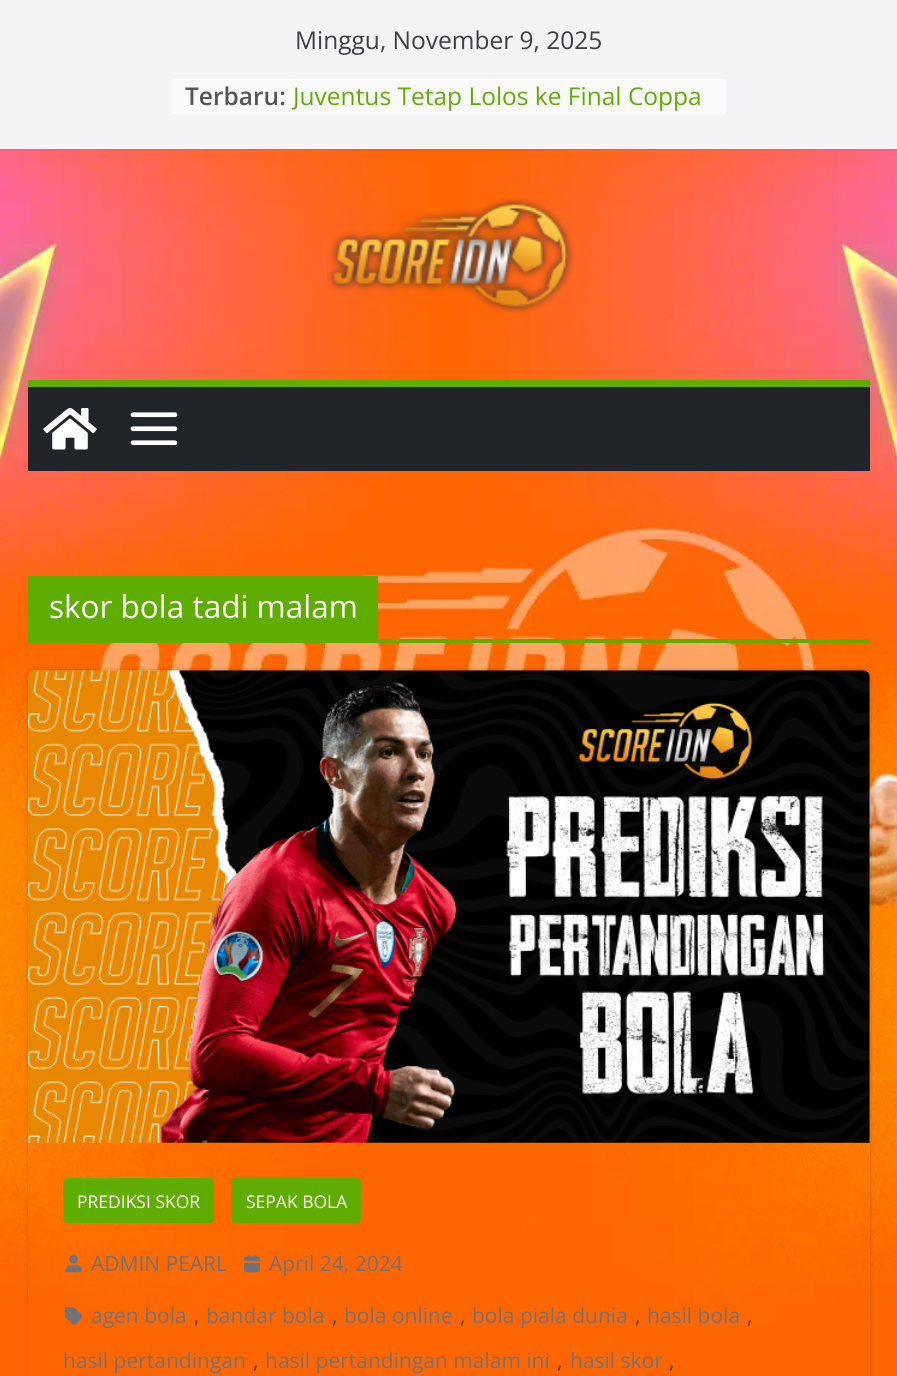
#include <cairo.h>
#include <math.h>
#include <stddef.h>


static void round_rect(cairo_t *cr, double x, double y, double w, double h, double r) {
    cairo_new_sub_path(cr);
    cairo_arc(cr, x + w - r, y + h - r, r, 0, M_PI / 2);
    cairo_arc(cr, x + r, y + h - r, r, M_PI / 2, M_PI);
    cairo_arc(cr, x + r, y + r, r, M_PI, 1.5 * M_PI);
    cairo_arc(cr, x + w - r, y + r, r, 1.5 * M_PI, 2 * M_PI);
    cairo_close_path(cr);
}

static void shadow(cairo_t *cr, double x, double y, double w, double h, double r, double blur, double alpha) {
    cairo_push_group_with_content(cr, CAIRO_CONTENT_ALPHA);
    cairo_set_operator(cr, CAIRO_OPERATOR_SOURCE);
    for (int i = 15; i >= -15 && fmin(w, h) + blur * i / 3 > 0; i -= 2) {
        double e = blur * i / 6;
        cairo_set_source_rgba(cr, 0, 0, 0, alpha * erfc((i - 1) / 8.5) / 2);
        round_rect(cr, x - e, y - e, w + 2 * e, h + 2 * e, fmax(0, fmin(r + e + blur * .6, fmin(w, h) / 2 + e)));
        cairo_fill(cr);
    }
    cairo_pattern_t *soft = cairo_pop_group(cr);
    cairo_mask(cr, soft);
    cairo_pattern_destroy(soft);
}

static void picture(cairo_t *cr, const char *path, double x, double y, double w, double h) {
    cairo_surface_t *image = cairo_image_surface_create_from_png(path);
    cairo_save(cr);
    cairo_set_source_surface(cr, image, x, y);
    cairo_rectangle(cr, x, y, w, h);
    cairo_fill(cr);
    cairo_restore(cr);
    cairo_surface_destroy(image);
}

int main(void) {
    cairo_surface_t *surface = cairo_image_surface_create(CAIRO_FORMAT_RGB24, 897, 1376);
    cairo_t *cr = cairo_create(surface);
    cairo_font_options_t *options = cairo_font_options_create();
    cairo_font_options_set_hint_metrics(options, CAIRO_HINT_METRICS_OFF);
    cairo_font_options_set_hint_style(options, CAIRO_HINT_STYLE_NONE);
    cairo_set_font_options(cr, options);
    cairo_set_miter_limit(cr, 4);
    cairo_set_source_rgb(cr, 1, 1, 1);
    cairo_paint(cr);
    picture(cr, "img1.png", 0, 149, 897, 1227);
    cairo_set_source_rgb(cr, 0, 0, 0);
    shadow(cr, 0, 0, 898, 149, 0, 2, 0.1);
    cairo_set_source_rgb(cr, 0.957, 0.957, 0.961);
    cairo_rectangle(cr, 0, 0, 897, 149);
    cairo_fill(cr);
    cairo_select_font_face(cr, "Open Sans", CAIRO_FONT_SLANT_NORMAL, CAIRO_FONT_WEIGHT_NORMAL);
    cairo_set_font_size(cr, 24.5);
    cairo_set_source_rgb(cr, 0.247, 0.247, 0.275);
    cairo_move_to(cr, 295, 49);
    cairo_show_text(cr, "Minggu, November 9, 2025");
    cairo_set_source_rgb(cr, 0.98, 0.98, 0.98);
    cairo_rectangle(cr, 172, 79, 554, 35);
    cairo_fill(cr);
    cairo_select_font_face(cr, "Open Sans SemiBold", CAIRO_FONT_SLANT_NORMAL, CAIRO_FONT_WEIGHT_NORMAL);
    cairo_set_source_rgb(cr, 0.333, 0.333, 0.333);
    cairo_move_to(cr, 185, 105);
    cairo_show_text(cr, "Terbaru:");
    cairo_save(cr);
    cairo_rectangle(cr, 292, 79, 420, 35);
    cairo_clip(cr);
    cairo_select_font_face(cr, "Open Sans", CAIRO_FONT_SLANT_NORMAL, CAIRO_FONT_WEIGHT_NORMAL);
    cairo_set_source_rgb(cr, 0.373, 0.678, 0);
    cairo_move_to(cr, 293, 105);
    cairo_show_text(cr, "Juventus Tetap Lolos ke Final Coppa");
    cairo_restore(cr);
    picture(cr, "img2.png", 327, 197, 248, 117);
    cairo_set_source_rgb(cr, 0.129, 0.145, 0.161);
    cairo_rectangle(cr, 28, 387, 842, 84);
    cairo_fill(cr);
    cairo_set_source_rgb(cr, 0.373, 0.678, 0);
    cairo_rectangle(cr, 28, 380, 842, 7);
    cairo_fill(cr);
    picture(cr, "img3.png", 43, 408, 54, 42);
    picture(cr, "img4.png", 130, 412, 48, 34);
    cairo_rectangle(cr, 28, 639, 842, 4);
    cairo_fill(cr);
    cairo_rectangle(cr, 28, 576, 350, 63);
    cairo_fill(cr);
    cairo_select_font_face(cr, "Open Sans", CAIRO_FONT_SLANT_NORMAL, CAIRO_FONT_WEIGHT_NORMAL);
    cairo_set_font_size(cr, 31.5);
    cairo_set_source_rgb(cr, 1, 1, 1);
    cairo_move_to(cr, 49, 618);
    cairo_show_text(cr, "skor bola tadi malam");
    cairo_save(cr);
    cairo_set_fill_rule(cr, CAIRO_FILL_RULE_EVEN_ODD);
    cairo_new_path(cr);
    cairo_move_to(cr, 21, 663);
    cairo_line_to(cr, 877, 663);
    cairo_line_to(cr, 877, 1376);
    cairo_line_to(cr, 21, 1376);
    cairo_close_path(cr);
    cairo_move_to(cr, 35, 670);
    cairo_line_to(cr, 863, 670);
    cairo_curve_to(cr, 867, 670, 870, 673, 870, 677);
    cairo_line_to(cr, 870, 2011);
    cairo_curve_to(cr, 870, 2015, 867, 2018, 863, 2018);
    cairo_line_to(cr, 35, 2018);
    cairo_curve_to(cr, 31, 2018, 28, 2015, 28, 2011);
    cairo_line_to(cr, 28, 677);
    cairo_curve_to(cr, 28, 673, 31, 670, 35, 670);
    cairo_close_path(cr);
    cairo_clip(cr);
    cairo_set_source_rgb(cr, 0, 0, 0);
    shadow(cr, 28, 670, 842, 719, 7, 2, 0.24);
    cairo_restore(cr);
    picture(cr, "img5.png", 28, 670, 842, 473);
    cairo_set_source_rgb(cr, 0.373, 0.678, 0);
    round_rect(cr, 63, 1178, 151, 45, 4);
    cairo_fill(cr);
    cairo_set_font_size(cr, 17.5);
    cairo_set_source_rgb(cr, 1, 1, 1);
    cairo_move_to(cr, 77, 1208);
    cairo_show_text(cr, "PREDIKSI SKOR");
    cairo_set_source_rgb(cr, 0.373, 0.678, 0);
    round_rect(cr, 231, 1178, 130, 45, 4);
    cairo_fill(cr);
    cairo_set_source_rgb(cr, 1, 1, 1);
    cairo_move_to(cr, 246, 1208);
    cairo_show_text(cr, "SEPAK BOLA");
    picture(cr, "img6.png", 65, 1254, 17, 19);
    cairo_set_font_size(cr, 21);
    cairo_set_source_rgb(cr, 0.443, 0.443, 0.478);
    cairo_move_to(cr, 91, 1271);
    cairo_show_text(cr, "ADMIN PEARL");
    picture(cr, "img7.png", 244, 1254, 16, 19);
    cairo_move_to(cr, 269, 1271);
    cairo_show_text(cr, "April 24, 2024");
    picture(cr, "img8.png", 64, 1307, 19, 18);
    cairo_move_to(cr, 91, 1323);
    cairo_show_text(cr, "agen bola");
    cairo_set_source_rgb(cr, 0.247, 0.247, 0.275);
    cairo_move_to(cr, 194, 1323);
    cairo_show_text(cr, ",");
    cairo_set_source_rgb(cr, 0.443, 0.443, 0.478);
    cairo_move_to(cr, 206, 1323);
    cairo_show_text(cr, "bandar bola");
    cairo_set_source_rgb(cr, 0.247, 0.247, 0.275);
    cairo_move_to(cr, 332, 1323);
    cairo_show_text(cr, ",");
    cairo_set_source_rgb(cr, 0.443, 0.443, 0.478);
    cairo_move_to(cr, 344, 1323);
    cairo_show_text(cr, "bola online");
    cairo_set_source_rgb(cr, 0.247, 0.247, 0.275);
    cairo_move_to(cr, 460, 1323);
    cairo_show_text(cr, ",");
    cairo_set_source_rgb(cr, 0.443, 0.443, 0.478);
    cairo_move_to(cr, 472, 1323);
    cairo_show_text(cr, "bola piala dunia");
    cairo_set_source_rgb(cr, 0.247, 0.247, 0.275);
    cairo_move_to(cr, 635, 1323);
    cairo_show_text(cr, ",");
    cairo_set_source_rgb(cr, 0.443, 0.443, 0.478);
    cairo_move_to(cr, 647, 1323);
    cairo_show_text(cr, "hasil bola");
    cairo_set_source_rgb(cr, 0.247, 0.247, 0.275);
    cairo_move_to(cr, 747, 1323);
    cairo_show_text(cr, ",");
    cairo_set_source_rgb(cr, 0.443, 0.443, 0.478);
    cairo_move_to(cr, 63, 1368);
    cairo_show_text(cr, "hasil pertandingan");
    cairo_set_source_rgb(cr, 0.247, 0.247, 0.275);
    cairo_move_to(cr, 253, 1368);
    cairo_show_text(cr, ",");
    cairo_set_source_rgb(cr, 0.443, 0.443, 0.478);
    cairo_move_to(cr, 265, 1368);
    cairo_show_text(cr, "hasil pertandingan malam ini");
    cairo_set_source_rgb(cr, 0.247, 0.247, 0.275);
    cairo_move_to(cr, 557, 1368);
    cairo_show_text(cr, ",");
    cairo_set_source_rgb(cr, 0.443, 0.443, 0.478);
    cairo_move_to(cr, 570, 1368);
    cairo_show_text(cr, "hasil skor");
    cairo_set_source_rgb(cr, 0.247, 0.247, 0.275);
    cairo_move_to(cr, 669, 1368);
    cairo_show_text(cr, ",");
    cairo_surface_write_to_png(surface, "page.png");
    cairo_font_options_destroy(options);
    cairo_destroy(cr);
    cairo_surface_destroy(surface);
    return 0;
}
